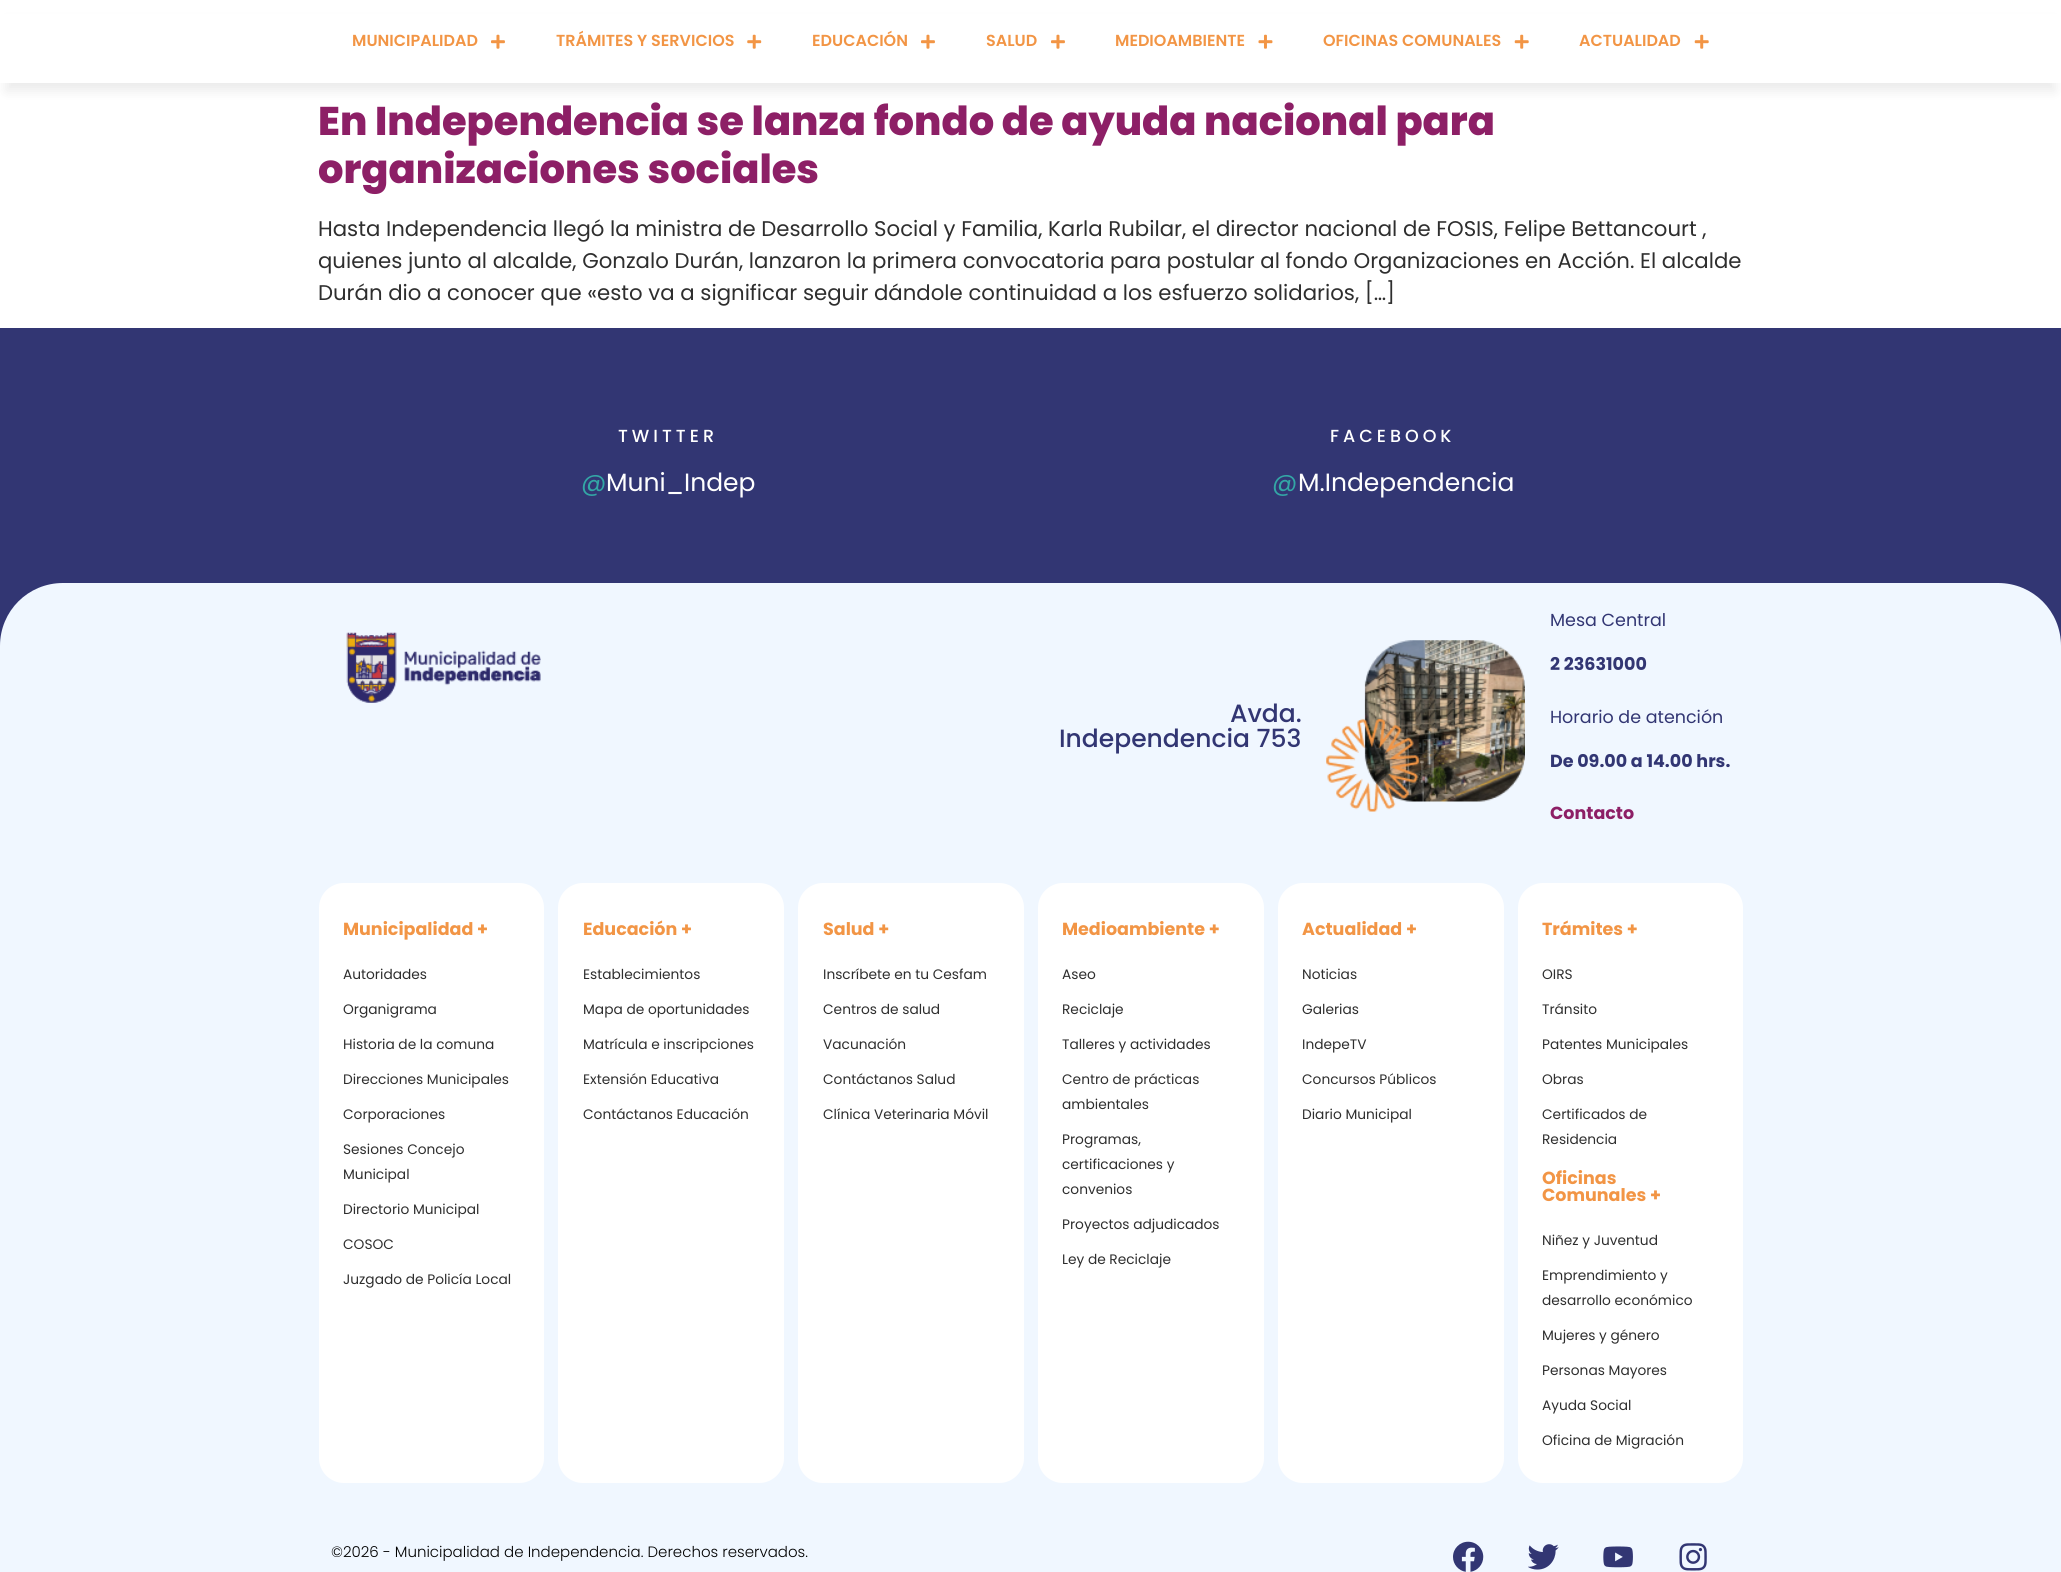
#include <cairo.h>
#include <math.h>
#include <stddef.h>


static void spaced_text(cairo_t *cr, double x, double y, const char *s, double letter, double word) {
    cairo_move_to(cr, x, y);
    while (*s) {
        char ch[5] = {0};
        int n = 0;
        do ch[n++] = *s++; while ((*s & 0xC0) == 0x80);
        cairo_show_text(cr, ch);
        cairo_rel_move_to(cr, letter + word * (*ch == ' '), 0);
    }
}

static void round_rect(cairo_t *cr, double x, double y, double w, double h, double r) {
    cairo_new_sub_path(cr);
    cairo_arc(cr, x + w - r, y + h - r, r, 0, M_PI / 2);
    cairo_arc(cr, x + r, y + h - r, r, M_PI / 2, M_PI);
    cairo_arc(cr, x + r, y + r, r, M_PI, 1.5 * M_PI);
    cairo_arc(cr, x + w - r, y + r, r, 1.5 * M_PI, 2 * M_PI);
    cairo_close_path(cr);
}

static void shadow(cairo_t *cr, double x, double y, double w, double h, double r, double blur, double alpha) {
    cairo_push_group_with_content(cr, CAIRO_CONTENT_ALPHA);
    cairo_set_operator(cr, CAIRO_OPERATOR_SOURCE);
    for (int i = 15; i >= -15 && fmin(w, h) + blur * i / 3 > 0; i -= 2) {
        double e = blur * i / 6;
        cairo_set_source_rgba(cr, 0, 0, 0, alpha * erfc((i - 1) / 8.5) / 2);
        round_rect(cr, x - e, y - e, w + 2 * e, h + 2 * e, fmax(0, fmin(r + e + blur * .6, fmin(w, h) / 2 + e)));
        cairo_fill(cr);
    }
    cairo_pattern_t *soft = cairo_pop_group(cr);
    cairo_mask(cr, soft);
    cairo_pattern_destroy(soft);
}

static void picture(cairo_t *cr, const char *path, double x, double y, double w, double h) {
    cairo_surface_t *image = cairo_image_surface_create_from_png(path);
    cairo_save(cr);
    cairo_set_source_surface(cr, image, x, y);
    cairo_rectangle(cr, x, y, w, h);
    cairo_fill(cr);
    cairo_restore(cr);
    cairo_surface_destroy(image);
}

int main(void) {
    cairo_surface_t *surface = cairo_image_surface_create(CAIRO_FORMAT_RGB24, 2061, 1572);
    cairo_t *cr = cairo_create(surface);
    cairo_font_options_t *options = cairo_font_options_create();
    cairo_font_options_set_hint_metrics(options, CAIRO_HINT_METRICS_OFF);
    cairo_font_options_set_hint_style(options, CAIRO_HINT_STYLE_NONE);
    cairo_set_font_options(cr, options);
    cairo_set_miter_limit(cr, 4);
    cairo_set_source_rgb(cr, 1, 1, 1);
    cairo_paint(cr);
    cairo_set_source_rgb(cr, 0, 0, 0);
    shadow(cr, 6, 21, 2049, 70, 0, 6, 0.08);
    cairo_set_source_rgb(cr, 1, 1, 1);
    cairo_rectangle(cr, 0, 14, 2061, 69);
    cairo_fill(cr);
    cairo_select_font_face(cr, "Poppins SemiBold", CAIRO_FONT_SLANT_NORMAL, CAIRO_FONT_WEIGHT_NORMAL);
    cairo_set_font_size(cr, 16);
    cairo_set_source_rgb(cr, 0.949, 0.584, 0.271);
    cairo_move_to(cr, 352, 46);
    cairo_show_text(cr, "MUNICIPALIDAD");
    picture(cr, "img1.png", 491, 34, 14, 15);
    cairo_move_to(cr, 556, 46);
    cairo_show_text(cr, "TRÁMITES Y SERVICIOS");
    picture(cr, "img2.png", 747, 34, 15, 15);
    cairo_move_to(cr, 812, 46);
    cairo_show_text(cr, "EDUCACIÓN");
    picture(cr, "img1.png", 921, 34, 14, 15);
    cairo_move_to(cr, 986, 46);
    cairo_show_text(cr, "SALUD");
    picture(cr, "img1.png", 1051, 34, 14, 15);
    cairo_move_to(cr, 1115, 46);
    cairo_show_text(cr, "MEDIOAMBIENTE");
    picture(cr, "img3.png", 1258, 34, 15, 15);
    cairo_move_to(cr, 1323, 46);
    cairo_show_text(cr, "OFICINAS COMUNALES");
    picture(cr, "img4.png", 1514, 34, 15, 15);
    cairo_move_to(cr, 1579, 46);
    cairo_show_text(cr, "ACTUALIDAD");
    picture(cr, "img4.png", 1694, 34, 15, 15);
    cairo_select_font_face(cr, "Poppins ExtraBold", CAIRO_FONT_SLANT_NORMAL, CAIRO_FONT_WEIGHT_NORMAL);
    cairo_set_font_size(cr, 40);
    cairo_set_source_rgb(cr, 0.553, 0.122, 0.4);
    cairo_move_to(cr, 318, 135);
    cairo_show_text(cr, "En Independencia se lanza fondo de ayuda nacional para");
    cairo_move_to(cr, 318, 183);
    cairo_show_text(cr, "organizaciones sociales");
    cairo_select_font_face(cr, "Poppins", CAIRO_FONT_SLANT_NORMAL, CAIRO_FONT_WEIGHT_NORMAL);
    cairo_set_font_size(cr, 21.25);
    cairo_set_source_rgb(cr, 0.18, 0.18, 0.18);
    cairo_move_to(cr, 318, 236);
    cairo_show_text(cr, "Hasta Independencia llegó la ministra de Desarrollo Social y Familia, Karla Rubilar, el director nacional de FOSIS, Felipe Bettancourt ,");
    cairo_move_to(cr, 318, 268);
    cairo_show_text(cr, "quienes junto al alcalde, Gonzalo Durán, lanzaron la primera convocatoria para postular al fondo Organizaciones en Acción. El alcalde");
    cairo_move_to(cr, 318, 300);
    cairo_show_text(cr, "Durán dio a conocer que «esto va a significar seguir dándole continuidad a los esfuerzo solidarios, […]");
    cairo_set_source_rgb(cr, 0.196, 0.212, 0.451);
    cairo_rectangle(cr, 0, 328, 2061, 318);
    cairo_fill(cr);
    cairo_select_font_face(cr, "Poppins Medium", CAIRO_FONT_SLANT_NORMAL, CAIRO_FONT_WEIGHT_NORMAL);
    cairo_set_font_size(cr, 17.5);
    cairo_set_source_rgb(cr, 1, 1, 1);
    spaced_text(cr, 618, 442, "TWITTER", 4, 0);
    cairo_select_font_face(cr, "Poppins", CAIRO_FONT_SLANT_NORMAL, CAIRO_FONT_WEIGHT_NORMAL);
    cairo_set_font_size(cr, 25);
    cairo_set_source_rgb(cr, 0.2, 0.655, 0.651);
    cairo_move_to(cr, 581, 491);
    cairo_show_text(cr, "@");
    cairo_set_source_rgb(cr, 1, 1, 1);
    cairo_move_to(cr, 606, 491);
    cairo_show_text(cr, "Muni_Indep");
    cairo_select_font_face(cr, "Poppins Medium", CAIRO_FONT_SLANT_NORMAL, CAIRO_FONT_WEIGHT_NORMAL);
    cairo_set_font_size(cr, 17.5);
    spaced_text(cr, 1330, 442, "FACEBOOK", 4, 0);
    cairo_select_font_face(cr, "Poppins", CAIRO_FONT_SLANT_NORMAL, CAIRO_FONT_WEIGHT_NORMAL);
    cairo_set_font_size(cr, 25);
    cairo_set_source_rgb(cr, 0.2, 0.655, 0.651);
    cairo_move_to(cr, 1272, 491);
    cairo_show_text(cr, "@");
    cairo_set_source_rgb(cr, 1, 1, 1);
    cairo_move_to(cr, 1298, 491);
    cairo_show_text(cr, "M.Independencia");
    cairo_set_source_rgb(cr, 0.941, 0.965, 1);
    cairo_new_path(cr);
    cairo_move_to(cr, 63, 583);
    cairo_line_to(cr, 1998, 583);
    cairo_curve_to(cr, 2033, 583, 2061, 611, 2061, 646);
    cairo_line_to(cr, 2061, 870);
    cairo_line_to(cr, 0, 870);
    cairo_line_to(cr, 0, 646);
    cairo_curve_to(cr, 0, 611, 28, 583, 63, 583);
    cairo_close_path(cr);
    cairo_fill(cr);
    picture(cr, "img5.png", 346, 632, 195, 71);
    cairo_select_font_face(cr, "Poppins Medium", CAIRO_FONT_SLANT_NORMAL, CAIRO_FONT_WEIGHT_NORMAL);
    cairo_set_source_rgb(cr, 0.196, 0.212, 0.451);
    cairo_move_to(cr, 1230, 722);
    cairo_show_text(cr, "Avda.");
    cairo_move_to(cr, 1059, 747);
    cairo_show_text(cr, "Independencia 753");
    picture(cr, "img6.png", 1326, 640, 199, 172);
    cairo_select_font_face(cr, "Poppins", CAIRO_FONT_SLANT_NORMAL, CAIRO_FONT_WEIGHT_NORMAL);
    cairo_set_font_size(cr, 17.5);
    cairo_move_to(cr, 1550, 626);
    cairo_show_text(cr, "Mesa Central");
    cairo_select_font_face(cr, "Poppins", CAIRO_FONT_SLANT_NORMAL, CAIRO_FONT_WEIGHT_BOLD);
    cairo_move_to(cr, 1550, 670);
    cairo_show_text(cr, "2 23631000");
    cairo_select_font_face(cr, "Poppins", CAIRO_FONT_SLANT_NORMAL, CAIRO_FONT_WEIGHT_NORMAL);
    cairo_move_to(cr, 1550, 723);
    cairo_show_text(cr, "Horario de atención");
    cairo_select_font_face(cr, "Poppins", CAIRO_FONT_SLANT_NORMAL, CAIRO_FONT_WEIGHT_BOLD);
    cairo_move_to(cr, 1550, 767);
    cairo_show_text(cr, "De 09.00 a 14.00 hrs.");
    cairo_set_source_rgb(cr, 0.553, 0.122, 0.4);
    cairo_move_to(cr, 1550, 819);
    cairo_show_text(cr, "Contacto");
    cairo_set_source_rgb(cr, 0.941, 0.965, 1);
    cairo_rectangle(cr, 0, 870, 2061, 702);
    cairo_fill(cr);
    cairo_set_source_rgb(cr, 1, 1, 1);
    round_rect(cr, 319, 883, 225, 600, 25);
    cairo_fill(cr);
    cairo_set_source_rgb(cr, 0.949, 0.584, 0.271);
    cairo_move_to(cr, 343, 935);
    cairo_show_text(cr, "Municipalidad +");
    cairo_select_font_face(cr, "Poppins", CAIRO_FONT_SLANT_NORMAL, CAIRO_FONT_WEIGHT_NORMAL);
    cairo_set_font_size(cr, 13.75);
    cairo_set_source_rgb(cr, 0.18, 0.18, 0.18);
    cairo_move_to(cr, 343, 979);
    cairo_show_text(cr, "Autoridades");
    cairo_move_to(cr, 343, 1014);
    cairo_show_text(cr, "Organigrama");
    cairo_move_to(cr, 343, 1049);
    cairo_show_text(cr, "Historia de la comuna");
    cairo_move_to(cr, 343, 1084);
    cairo_show_text(cr, "Direcciones Municipales");
    cairo_move_to(cr, 343, 1119);
    cairo_show_text(cr, "Corporaciones");
    cairo_move_to(cr, 343, 1154);
    cairo_show_text(cr, "Sesiones Concejo");
    cairo_move_to(cr, 343, 1179);
    cairo_show_text(cr, "Municipal");
    cairo_move_to(cr, 343, 1214);
    cairo_show_text(cr, "Directorio Municipal");
    cairo_move_to(cr, 343, 1249);
    cairo_show_text(cr, "COSOC");
    cairo_move_to(cr, 343, 1284);
    cairo_show_text(cr, "Juzgado de Policía Local");
    cairo_set_source_rgb(cr, 1, 1, 1);
    round_rect(cr, 558, 883, 226, 600, 25);
    cairo_fill(cr);
    cairo_select_font_face(cr, "Poppins", CAIRO_FONT_SLANT_NORMAL, CAIRO_FONT_WEIGHT_BOLD);
    cairo_set_font_size(cr, 17.5);
    cairo_set_source_rgb(cr, 0.949, 0.584, 0.271);
    cairo_move_to(cr, 583, 935);
    cairo_show_text(cr, "Educación +");
    cairo_select_font_face(cr, "Poppins", CAIRO_FONT_SLANT_NORMAL, CAIRO_FONT_WEIGHT_NORMAL);
    cairo_set_font_size(cr, 13.75);
    cairo_set_source_rgb(cr, 0.18, 0.18, 0.18);
    cairo_move_to(cr, 583, 979);
    cairo_show_text(cr, "Establecimientos");
    cairo_move_to(cr, 583, 1014);
    cairo_show_text(cr, "Mapa de oportunidades");
    cairo_move_to(cr, 583, 1049);
    cairo_show_text(cr, "Matrícula e inscripciones");
    cairo_move_to(cr, 583, 1084);
    cairo_show_text(cr, "Extensión Educativa");
    cairo_move_to(cr, 583, 1119);
    cairo_show_text(cr, "Contáctanos Educación");
    cairo_set_source_rgb(cr, 1, 1, 1);
    round_rect(cr, 798, 883, 226, 600, 25);
    cairo_fill(cr);
    cairo_select_font_face(cr, "Poppins", CAIRO_FONT_SLANT_NORMAL, CAIRO_FONT_WEIGHT_BOLD);
    cairo_set_font_size(cr, 17.5);
    cairo_set_source_rgb(cr, 0.949, 0.584, 0.271);
    cairo_move_to(cr, 823, 935);
    cairo_show_text(cr, "Salud +");
    cairo_select_font_face(cr, "Poppins", CAIRO_FONT_SLANT_NORMAL, CAIRO_FONT_WEIGHT_NORMAL);
    cairo_set_font_size(cr, 13.75);
    cairo_set_source_rgb(cr, 0.18, 0.18, 0.18);
    cairo_move_to(cr, 823, 979);
    cairo_show_text(cr, "Inscríbete en tu Cesfam");
    cairo_move_to(cr, 823, 1014);
    cairo_show_text(cr, "Centros de salud");
    cairo_move_to(cr, 823, 1049);
    cairo_show_text(cr, "Vacunación");
    cairo_move_to(cr, 823, 1084);
    cairo_show_text(cr, "Contáctanos Salud");
    cairo_move_to(cr, 823, 1119);
    cairo_show_text(cr, "Clínica Veterinaria Móvil");
    cairo_set_source_rgb(cr, 1, 1, 1);
    round_rect(cr, 1038, 883, 226, 600, 25);
    cairo_fill(cr);
    cairo_select_font_face(cr, "Poppins", CAIRO_FONT_SLANT_NORMAL, CAIRO_FONT_WEIGHT_BOLD);
    cairo_set_font_size(cr, 17.5);
    cairo_set_source_rgb(cr, 0.949, 0.584, 0.271);
    cairo_move_to(cr, 1062, 935);
    cairo_show_text(cr, "Medioambiente +");
    cairo_select_font_face(cr, "Poppins", CAIRO_FONT_SLANT_NORMAL, CAIRO_FONT_WEIGHT_NORMAL);
    cairo_set_font_size(cr, 13.75);
    cairo_set_source_rgb(cr, 0.18, 0.18, 0.18);
    cairo_move_to(cr, 1062, 979);
    cairo_show_text(cr, "Aseo");
    cairo_move_to(cr, 1062, 1014);
    cairo_show_text(cr, "Reciclaje");
    cairo_move_to(cr, 1062, 1049);
    cairo_show_text(cr, "Talleres y actividades");
    cairo_move_to(cr, 1062, 1084);
    cairo_show_text(cr, "Centro de prácticas");
    cairo_move_to(cr, 1062, 1109);
    cairo_show_text(cr, "ambientales");
    cairo_move_to(cr, 1062, 1144);
    cairo_show_text(cr, "Programas,");
    cairo_move_to(cr, 1062, 1169);
    cairo_show_text(cr, "certificaciones y");
    cairo_move_to(cr, 1062, 1194);
    cairo_show_text(cr, "convenios");
    cairo_move_to(cr, 1062, 1229);
    cairo_show_text(cr, "Proyectos adjudicados");
    cairo_move_to(cr, 1062, 1264);
    cairo_show_text(cr, "Ley de Reciclaje");
    cairo_set_source_rgb(cr, 1, 1, 1);
    round_rect(cr, 1278, 883, 226, 600, 25);
    cairo_fill(cr);
    cairo_select_font_face(cr, "Poppins", CAIRO_FONT_SLANT_NORMAL, CAIRO_FONT_WEIGHT_BOLD);
    cairo_set_font_size(cr, 17.5);
    cairo_set_source_rgb(cr, 0.949, 0.584, 0.271);
    cairo_move_to(cr, 1302, 935);
    cairo_show_text(cr, "Actualidad +");
    cairo_select_font_face(cr, "Poppins", CAIRO_FONT_SLANT_NORMAL, CAIRO_FONT_WEIGHT_NORMAL);
    cairo_set_font_size(cr, 13.75);
    cairo_set_source_rgb(cr, 0.18, 0.18, 0.18);
    cairo_move_to(cr, 1302, 979);
    cairo_show_text(cr, "Noticias");
    cairo_move_to(cr, 1302, 1014);
    cairo_show_text(cr, "Galerias");
    cairo_move_to(cr, 1302, 1049);
    cairo_show_text(cr, "IndepeTV");
    cairo_move_to(cr, 1302, 1084);
    cairo_show_text(cr, "Concursos Públicos");
    cairo_move_to(cr, 1302, 1119);
    cairo_show_text(cr, "Diario Municipal");
    cairo_set_source_rgb(cr, 1, 1, 1);
    round_rect(cr, 1518, 883, 225, 600, 25);
    cairo_fill(cr);
    cairo_select_font_face(cr, "Poppins", CAIRO_FONT_SLANT_NORMAL, CAIRO_FONT_WEIGHT_BOLD);
    cairo_set_font_size(cr, 17.5);
    cairo_set_source_rgb(cr, 0.949, 0.584, 0.271);
    cairo_move_to(cr, 1542, 935);
    cairo_show_text(cr, "Trámites +");
    cairo_select_font_face(cr, "Poppins", CAIRO_FONT_SLANT_NORMAL, CAIRO_FONT_WEIGHT_NORMAL);
    cairo_set_font_size(cr, 13.75);
    cairo_set_source_rgb(cr, 0.18, 0.18, 0.18);
    cairo_move_to(cr, 1542, 979);
    cairo_show_text(cr, "OIRS");
    cairo_move_to(cr, 1542, 1014);
    cairo_show_text(cr, "Tránsito");
    cairo_move_to(cr, 1542, 1049);
    cairo_show_text(cr, "Patentes Municipales");
    cairo_move_to(cr, 1542, 1084);
    cairo_show_text(cr, "Obras");
    cairo_move_to(cr, 1542, 1119);
    cairo_show_text(cr, "Certificados de");
    cairo_move_to(cr, 1542, 1144);
    cairo_show_text(cr, "Residencia");
    cairo_select_font_face(cr, "Poppins", CAIRO_FONT_SLANT_NORMAL, CAIRO_FONT_WEIGHT_BOLD);
    cairo_set_font_size(cr, 17.5);
    cairo_set_source_rgb(cr, 0.949, 0.584, 0.271);
    cairo_move_to(cr, 1542, 1184);
    cairo_show_text(cr, "Oficinas");
    cairo_move_to(cr, 1542, 1201);
    cairo_show_text(cr, "Comunales +");
    cairo_select_font_face(cr, "Poppins", CAIRO_FONT_SLANT_NORMAL, CAIRO_FONT_WEIGHT_NORMAL);
    cairo_set_font_size(cr, 13.75);
    cairo_set_source_rgb(cr, 0.18, 0.18, 0.18);
    cairo_move_to(cr, 1542, 1245);
    cairo_show_text(cr, "Niñez y Juventud");
    cairo_move_to(cr, 1542, 1280);
    cairo_show_text(cr, "Emprendimiento y");
    cairo_move_to(cr, 1542, 1305);
    cairo_show_text(cr, "desarrollo económico");
    cairo_move_to(cr, 1542, 1340);
    cairo_show_text(cr, "Mujeres y género");
    cairo_move_to(cr, 1542, 1375);
    cairo_show_text(cr, "Personas Mayores");
    cairo_move_to(cr, 1542, 1410);
    cairo_show_text(cr, "Ayuda Social");
    cairo_move_to(cr, 1542, 1445);
    cairo_show_text(cr, "Oficina de Migración");
    cairo_select_font_face(cr, "Poppins Light", CAIRO_FONT_SLANT_NORMAL, CAIRO_FONT_WEIGHT_NORMAL);
    cairo_set_font_size(cr, 15);
    cairo_set_source_rgb(cr, 0, 0, 0);
    cairo_move_to(cr, 331, 1557);
    cairo_show_text(cr, "©2026 - Municipalidad de Independencia. Derechos reservados.");
    picture(cr, "img7.png", 1453, 1541, 31, 31);
    picture(cr, "img8.png", 1528, 1544, 31, 26);
    picture(cr, "img9.png", 1603, 1546, 30, 22);
    picture(cr, "img10.png", 1679, 1543, 28, 28);
    cairo_surface_write_to_png(surface, "page.png");
    cairo_font_options_destroy(options);
    cairo_destroy(cr);
    cairo_surface_destroy(surface);
    return 0;
}
